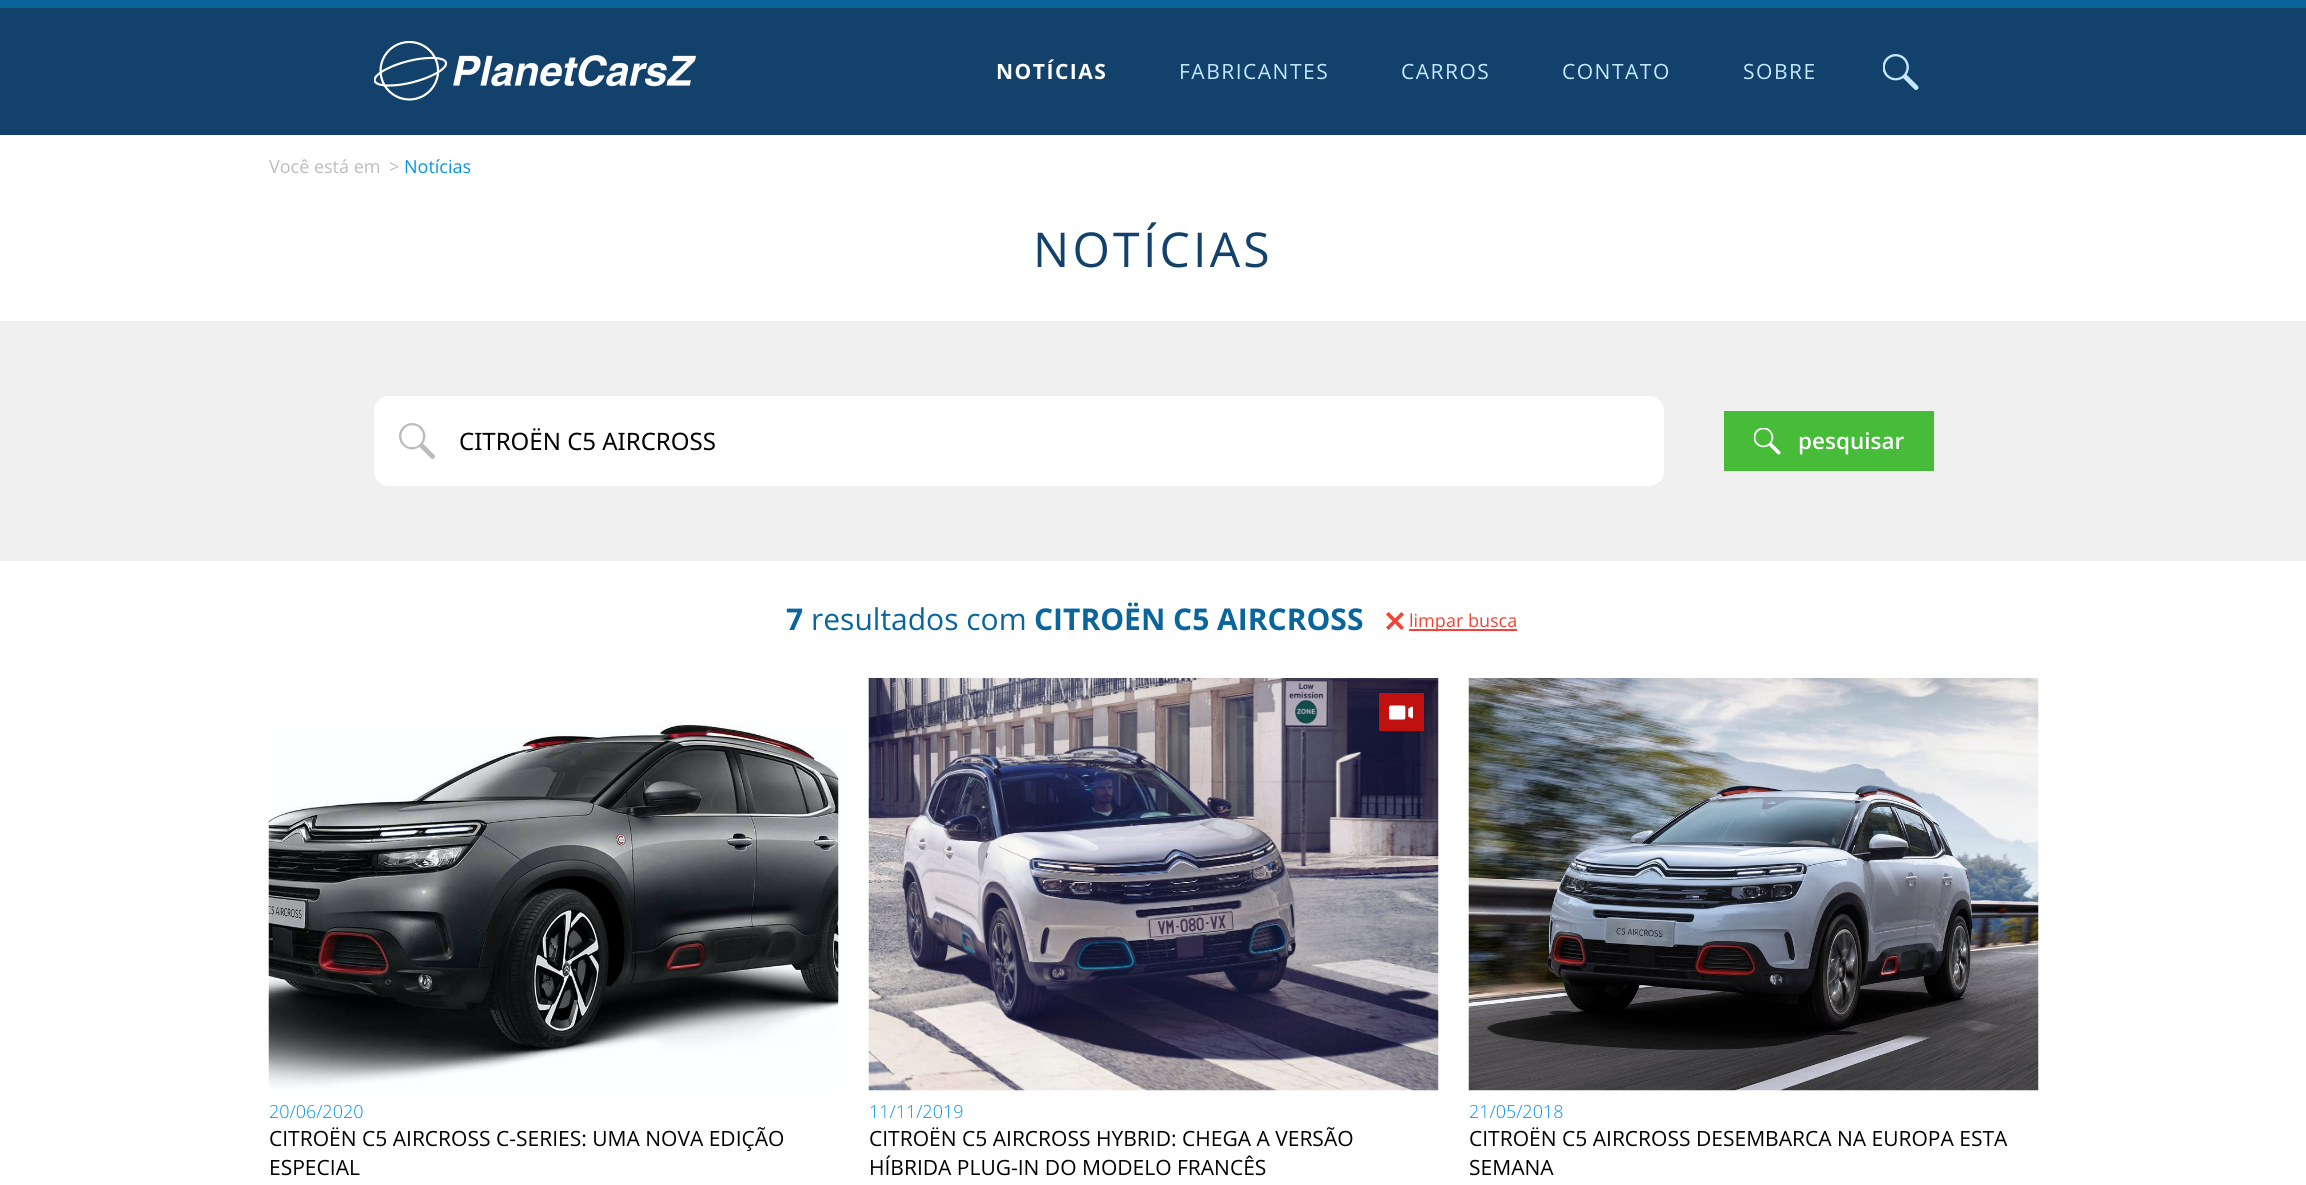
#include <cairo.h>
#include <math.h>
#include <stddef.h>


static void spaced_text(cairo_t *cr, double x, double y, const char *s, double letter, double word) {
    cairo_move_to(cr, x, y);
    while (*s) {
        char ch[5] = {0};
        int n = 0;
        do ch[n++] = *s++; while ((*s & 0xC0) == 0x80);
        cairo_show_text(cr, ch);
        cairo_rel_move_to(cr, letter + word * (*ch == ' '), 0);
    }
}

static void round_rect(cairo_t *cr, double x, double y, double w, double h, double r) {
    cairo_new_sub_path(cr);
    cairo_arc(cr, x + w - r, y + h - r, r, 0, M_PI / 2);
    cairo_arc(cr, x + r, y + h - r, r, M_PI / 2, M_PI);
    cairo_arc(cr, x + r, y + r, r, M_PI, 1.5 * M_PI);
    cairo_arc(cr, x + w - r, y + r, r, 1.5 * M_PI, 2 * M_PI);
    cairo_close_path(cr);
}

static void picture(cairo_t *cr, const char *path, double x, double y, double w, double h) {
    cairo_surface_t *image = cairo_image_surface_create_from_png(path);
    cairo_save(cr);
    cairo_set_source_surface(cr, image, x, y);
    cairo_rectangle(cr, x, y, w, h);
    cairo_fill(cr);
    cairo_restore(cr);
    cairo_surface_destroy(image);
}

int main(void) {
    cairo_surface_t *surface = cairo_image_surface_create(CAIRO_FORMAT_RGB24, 2306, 1185);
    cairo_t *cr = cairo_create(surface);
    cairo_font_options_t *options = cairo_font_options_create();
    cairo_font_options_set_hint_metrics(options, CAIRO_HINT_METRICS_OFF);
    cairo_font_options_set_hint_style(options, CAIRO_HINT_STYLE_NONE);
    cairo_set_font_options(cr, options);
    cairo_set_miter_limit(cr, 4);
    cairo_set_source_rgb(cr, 1, 1, 1);
    cairo_paint(cr);
    cairo_set_source_rgb(cr, 0.071, 0.255, 0.424);
    cairo_rectangle(cr, 0, 8, 2306, 127);
    cairo_fill(cr);
    cairo_set_source_rgb(cr, 0.039, 0.396, 0.608);
    cairo_rectangle(cr, 0, 0, 2306, 8);
    cairo_fill(cr);
    picture(cr, "img1.png", 374, 41, 322, 60);
    cairo_select_font_face(cr, "Open Sans", CAIRO_FONT_SLANT_NORMAL, CAIRO_FONT_WEIGHT_BOLD);
    cairo_set_font_size(cr, 21);
    cairo_set_source_rgb(cr, 1, 1, 1);
    spaced_text(cr, 996, 79, "NOTÍCIAS", 1.5, 0);
    cairo_select_font_face(cr, "Open Sans", CAIRO_FONT_SLANT_NORMAL, CAIRO_FONT_WEIGHT_NORMAL);
    cairo_set_source_rgb(cr, 0.765, 0.91, 1);
    spaced_text(cr, 1179, 79, "FABRICANTES", 1.5, 0);
    spaced_text(cr, 1401, 79, "CARROS", 1.5, 0);
    spaced_text(cr, 1562, 79, "CONTATO", 1.5, 0);
    spaced_text(cr, 1743, 79, "SOBRE", 1.5, 0);
    picture(cr, "img2.png", 1883, 54, 36, 36);
    cairo_set_font_size(cr, 18);
    cairo_set_source_rgb(cr, 0.737, 0.737, 0.737);
    cairo_move_to(cr, 269, 173);
    cairo_show_text(cr, "Você está em");
    cairo_move_to(cr, 389, 173);
    cairo_show_text(cr, ">");
    cairo_set_source_rgb(cr, 0.02, 0.58, 0.914);
    cairo_move_to(cr, 404, 173);
    cairo_show_text(cr, "Notícias");
    cairo_set_font_size(cr, 48);
    cairo_set_source_rgb(cr, 0.071, 0.255, 0.424);
    spaced_text(cr, 1033, 267, "NOTÍCIAS", 3.25, 0);
    cairo_set_source_rgb(cr, 0.941, 0.941, 0.941);
    cairo_rectangle(cr, 0, 321, 2306, 240);
    cairo_fill(cr);
    cairo_set_source_rgb(cr, 1, 1, 1);
    round_rect(cr, 374, 396, 1290, 90, 15);
    cairo_fill(cr);
    picture(cr, "img3.png", 399, 423, 36, 36);
    cairo_select_font_face(cr, "Noto Sans", CAIRO_FONT_SLANT_NORMAL, CAIRO_FONT_WEIGHT_NORMAL);
    cairo_set_font_size(cr, 24);
    cairo_set_source_rgb(cr, 0, 0, 0);
    cairo_move_to(cr, 459, 450);
    cairo_show_text(cr, "CITROËN C5 AIRCROSS");
    cairo_set_source_rgb(cr, 0.275, 0.737, 0.224);
    cairo_rectangle(cr, 1724, 411, 210, 60);
    cairo_fill(cr);
    picture(cr, "img4.png", 1754, 428, 27, 27);
    cairo_select_font_face(cr, "Open Sans SemiBold", CAIRO_FONT_SLANT_NORMAL, CAIRO_FONT_WEIGHT_NORMAL);
    cairo_set_font_size(cr, 22.5);
    cairo_set_source_rgb(cr, 1, 1, 1);
    cairo_move_to(cr, 1798, 449);
    cairo_show_text(cr, "pesquisar");
    cairo_select_font_face(cr, "Open Sans", CAIRO_FONT_SLANT_NORMAL, CAIRO_FONT_WEIGHT_BOLD);
    cairo_set_font_size(cr, 30);
    cairo_set_source_rgb(cr, 0.039, 0.396, 0.608);
    cairo_move_to(cr, 786, 630);
    cairo_show_text(cr, "7");
    cairo_select_font_face(cr, "Open Sans", CAIRO_FONT_SLANT_NORMAL, CAIRO_FONT_WEIGHT_NORMAL);
    cairo_move_to(cr, 811, 630);
    cairo_show_text(cr, "resultados com");
    cairo_select_font_face(cr, "Open Sans", CAIRO_FONT_SLANT_NORMAL, CAIRO_FONT_WEIGHT_BOLD);
    cairo_move_to(cr, 1034, 630);
    cairo_show_text(cr, "CITROËN C5 AIRCROSS");
    picture(cr, "img5.png", 1386, 612, 18, 18);
    cairo_set_source_rgb(cr, 0.957, 0.263, 0.212);
    cairo_rectangle(cr, 1409, 629, 108, 2);
    cairo_fill(cr);
    cairo_select_font_face(cr, "Open Sans", CAIRO_FONT_SLANT_NORMAL, CAIRO_FONT_WEIGHT_NORMAL);
    cairo_set_font_size(cr, 18);
    cairo_move_to(cr, 1409, 627);
    cairo_show_text(cr, "limpar busca");
    picture(cr, "img6.png", 268, 723, 571, 367);
    cairo_select_font_face(cr, "Open Sans Light", CAIRO_FONT_SLANT_NORMAL, CAIRO_FONT_WEIGHT_NORMAL);
    cairo_set_source_rgb(cr, 0.02, 0.58, 0.914);
    cairo_move_to(cr, 269, 1118);
    cairo_show_text(cr, "20/06/2020");
    cairo_select_font_face(cr, "Open Sans", CAIRO_FONT_SLANT_NORMAL, CAIRO_FONT_WEIGHT_NORMAL);
    cairo_set_font_size(cr, 21);
    cairo_set_source_rgb(cr, 0, 0, 0);
    cairo_move_to(cr, 269, 1146);
    cairo_show_text(cr, "CITROËN C5 AIRCROSS C-SERIES: UMA NOVA EDIÇÃO");
    cairo_move_to(cr, 269, 1175);
    cairo_show_text(cr, "ESPECIAL");
    picture(cr, "img7.png", 868, 678, 571, 413);
    cairo_set_source_rgb(cr, 0.757, 0.063, 0.063);
    cairo_rectangle(cr, 1379, 693, 45, 38);
    cairo_fill(cr);
    picture(cr, "img8.png", 1389, 705, 24, 15);
    cairo_select_font_face(cr, "Open Sans Light", CAIRO_FONT_SLANT_NORMAL, CAIRO_FONT_WEIGHT_NORMAL);
    cairo_set_font_size(cr, 18);
    cairo_set_source_rgb(cr, 0.02, 0.58, 0.914);
    cairo_move_to(cr, 869, 1118);
    cairo_show_text(cr, "11/11/2019");
    cairo_select_font_face(cr, "Open Sans", CAIRO_FONT_SLANT_NORMAL, CAIRO_FONT_WEIGHT_NORMAL);
    cairo_set_font_size(cr, 21);
    cairo_set_source_rgb(cr, 0, 0, 0);
    cairo_move_to(cr, 869, 1146);
    cairo_show_text(cr, "CITROËN C5 AIRCROSS HYBRID: CHEGA A VERSÃO");
    cairo_move_to(cr, 869, 1175);
    cairo_show_text(cr, "HÍBRIDA PLUG-IN DO MODELO FRANCÊS");
    picture(cr, "img9.png", 1468, 678, 571, 413);
    cairo_select_font_face(cr, "Open Sans Light", CAIRO_FONT_SLANT_NORMAL, CAIRO_FONT_WEIGHT_NORMAL);
    cairo_set_font_size(cr, 18);
    cairo_set_source_rgb(cr, 0.02, 0.58, 0.914);
    cairo_move_to(cr, 1469, 1118);
    cairo_show_text(cr, "21/05/2018");
    cairo_select_font_face(cr, "Open Sans", CAIRO_FONT_SLANT_NORMAL, CAIRO_FONT_WEIGHT_NORMAL);
    cairo_set_font_size(cr, 21);
    cairo_set_source_rgb(cr, 0, 0, 0);
    cairo_move_to(cr, 1469, 1146);
    cairo_show_text(cr, "CITROËN C5 AIRCROSS DESEMBARCA NA EUROPA ESTA");
    cairo_move_to(cr, 1469, 1175);
    cairo_show_text(cr, "SEMANA");
    cairo_surface_write_to_png(surface, "page.png");
    cairo_font_options_destroy(options);
    cairo_destroy(cr);
    cairo_surface_destroy(surface);
    return 0;
}
